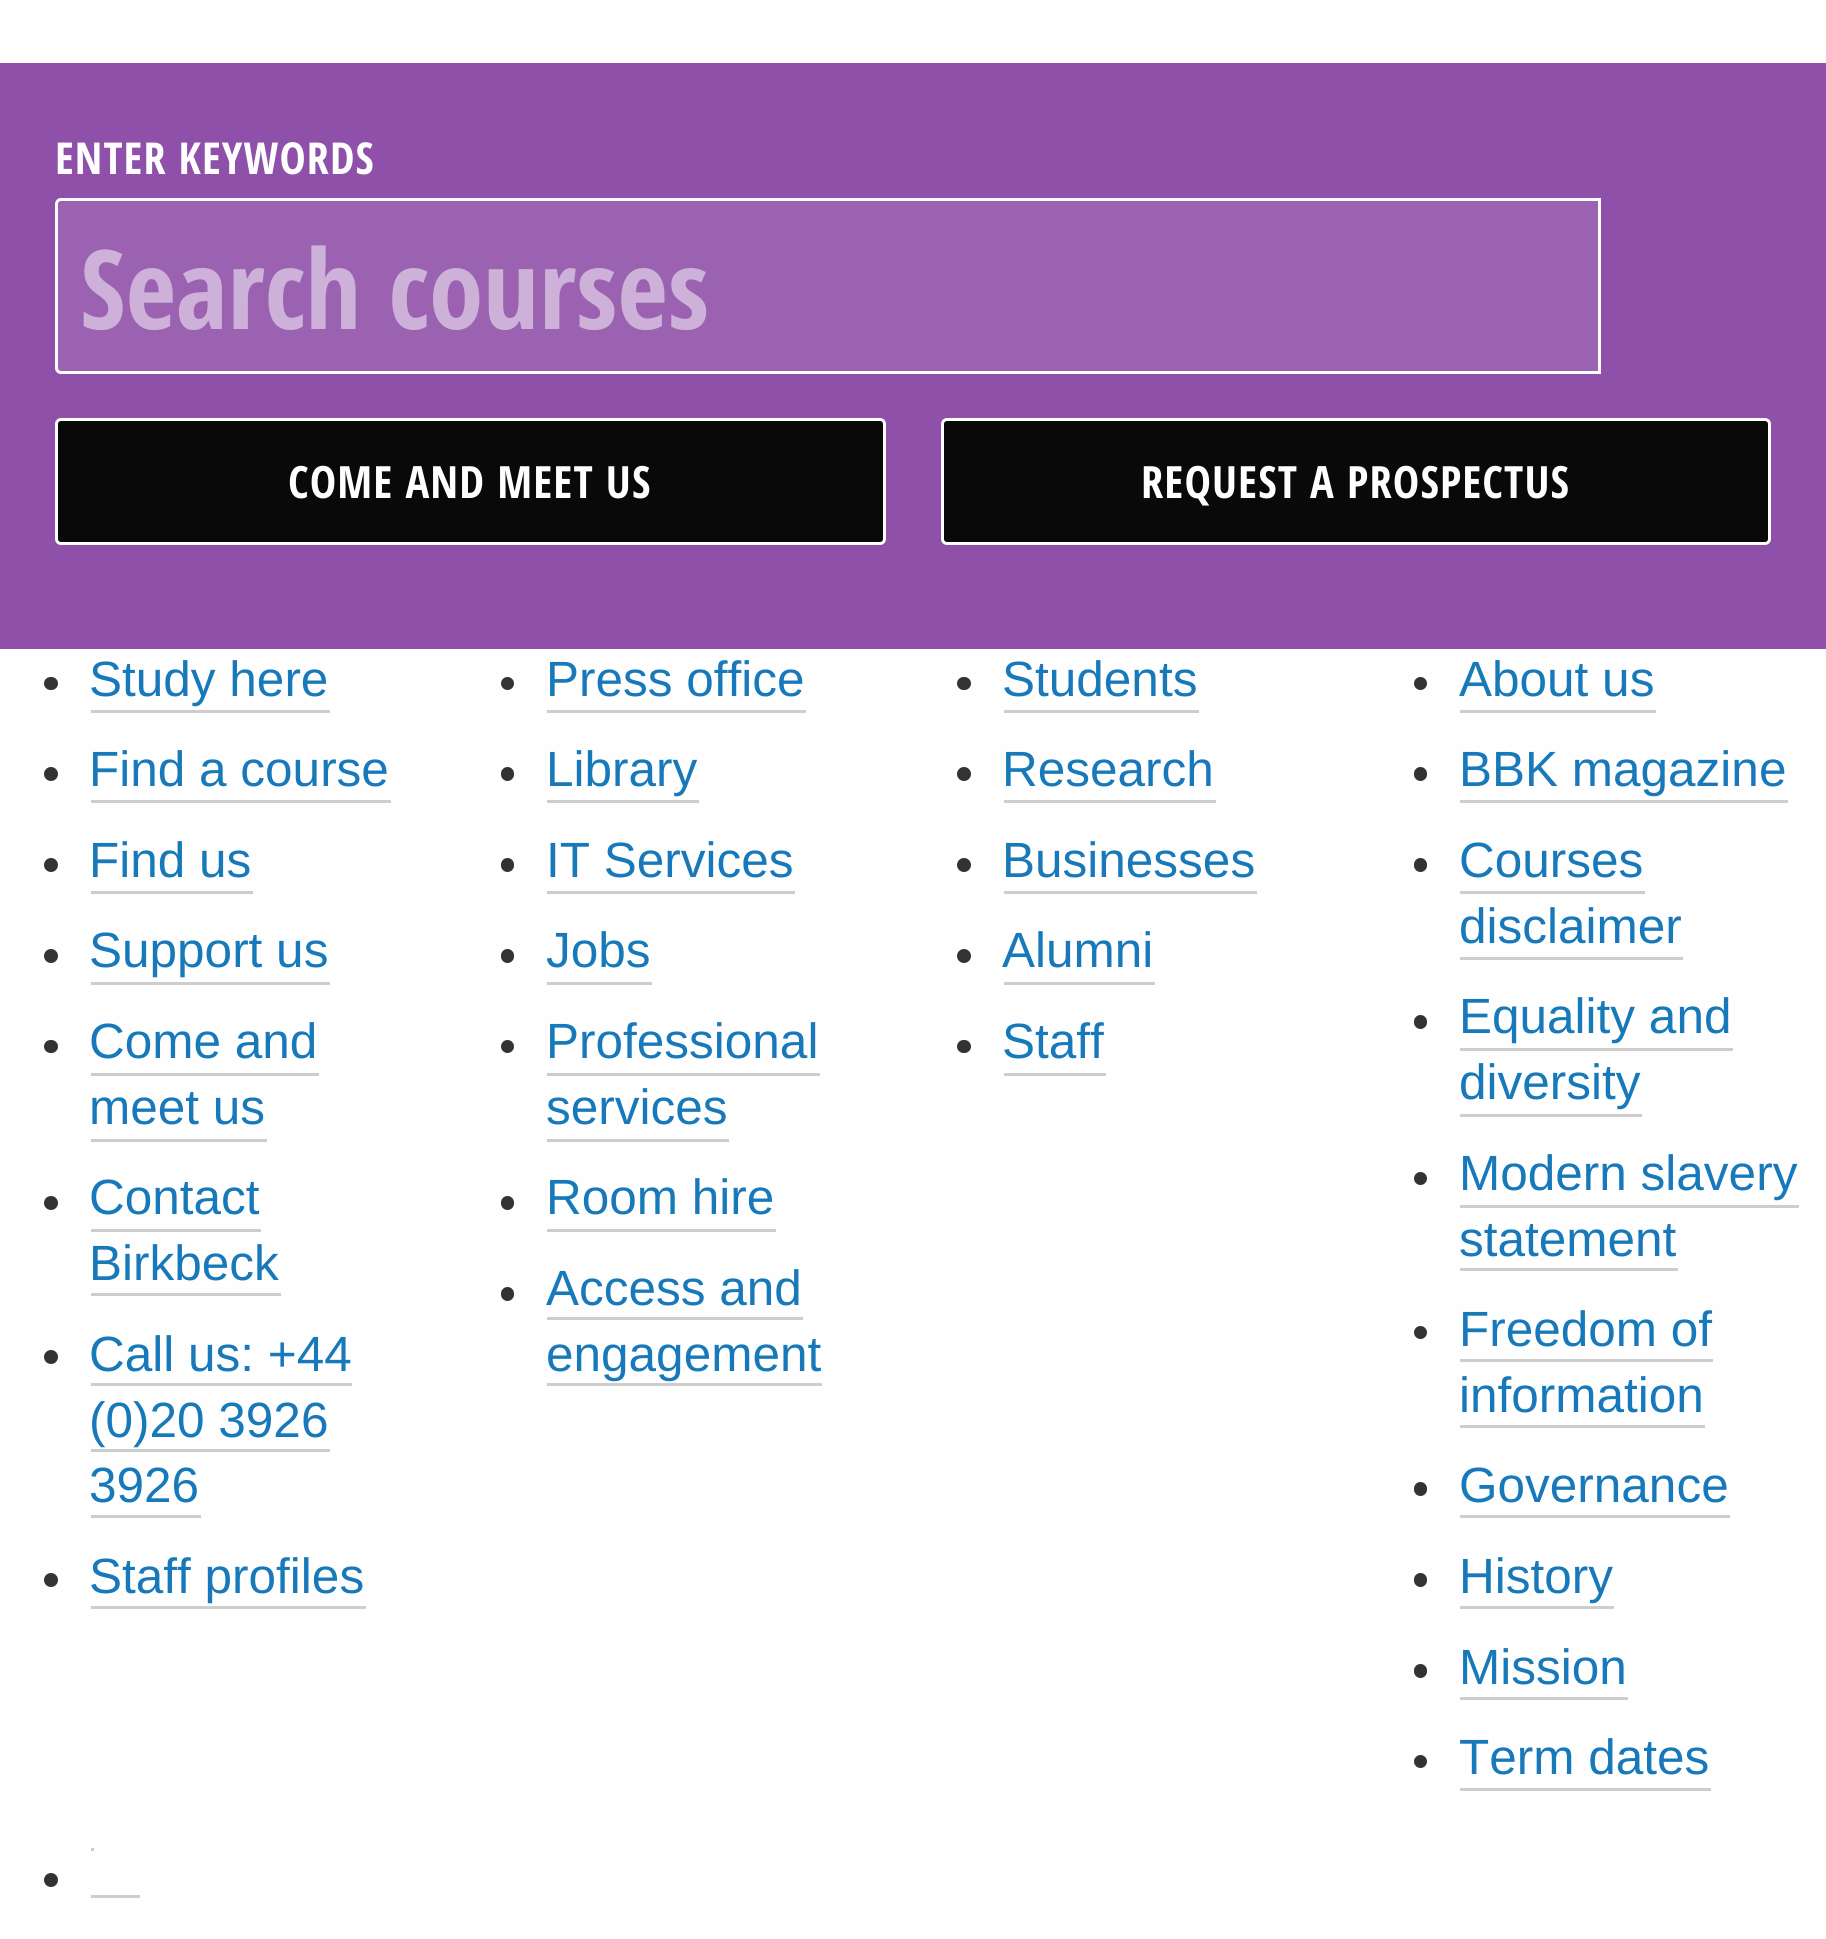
#include <cairo.h>
#include <math.h>
#include <stddef.h>


static void spaced_text(cairo_t *cr, double x, double y, const char *s, double letter, double word) {
    cairo_move_to(cr, x, y);
    while (*s) {
        char ch[5] = {0};
        int n = 0;
        do ch[n++] = *s++; while ((*s & 0xC0) == 0x80);
        cairo_show_text(cr, ch);
        cairo_rel_move_to(cr, letter + word * (*ch == ' '), 0);
    }
}

static void round_rect(cairo_t *cr, double x, double y, double w, double h, double r) {
    cairo_new_sub_path(cr);
    cairo_arc(cr, x + w - r, y + h - r, r, 0, M_PI / 2);
    cairo_arc(cr, x + r, y + h - r, r, M_PI / 2, M_PI);
    cairo_arc(cr, x + r, y + r, r, M_PI, 1.5 * M_PI);
    cairo_arc(cr, x + w - r, y + r, r, 1.5 * M_PI, 2 * M_PI);
    cairo_close_path(cr);
}

int main(void) {
    cairo_surface_t *surface = cairo_image_surface_create(CAIRO_FORMAT_RGB24, 1826, 1939);
    cairo_t *cr = cairo_create(surface);
    cairo_font_options_t *options = cairo_font_options_create();
    cairo_font_options_set_hint_metrics(options, CAIRO_HINT_METRICS_OFF);
    cairo_font_options_set_hint_style(options, CAIRO_HINT_STYLE_NONE);
    cairo_set_font_options(cr, options);
    cairo_set_miter_limit(cr, 4);
    cairo_set_source_rgb(cr, 0.996, 0.996, 0.996);
    cairo_paint(cr);
    cairo_set_source_rgb(cr, 0.557, 0.314, 0.663);
    cairo_rectangle(cr, 0, 63, 1826, 586);
    cairo_fill(cr);
    cairo_select_font_face(cr, "Open Sans Condensed", CAIRO_FONT_SLANT_NORMAL, CAIRO_FONT_WEIGHT_BOLD);
    cairo_set_font_size(cr, 44);
    cairo_set_source_rgb(cr, 0.996, 0.996, 0.996);
    spaced_text(cr, 55, 174, "ENTER KEYWORDS", 1.1, 0);
    cairo_set_source_rgb(cr, 0.604, 0.384, 0.694);
    cairo_new_path(cr);
    cairo_move_to(cr, 61, 199.5);
    cairo_line_to(cr, 1599.5, 199.5);
    cairo_line_to(cr, 1599.5, 372.5);
    cairo_line_to(cr, 61, 372.5);
    cairo_curve_to(cr, 58.5, 372.5, 56.5, 370.5, 56.5, 368);
    cairo_line_to(cr, 56.5, 204);
    cairo_curve_to(cr, 56.5, 201.5, 58.5, 199.5, 61, 199.5);
    cairo_close_path(cr);
    cairo_fill_preserve(cr);
    cairo_set_source_rgb(cr, 0.996, 0.996, 0.996);
    cairo_set_line_width(cr, 3);
    cairo_stroke(cr);
    cairo_set_font_size(cr, 110);
    cairo_set_source_rgb(cr, 0.804, 0.694, 0.847);
    cairo_move_to(cr, 80, 329);
    cairo_show_text(cr, "Search courses");
    cairo_set_source_rgb(cr, 0.039, 0.039, 0.039);
    round_rect(cr, 56.5, 419.5, 828, 124, 4.5);
    cairo_fill_preserve(cr);
    cairo_set_source_rgb(cr, 0.996, 0.996, 0.996);
    cairo_stroke(cr);
    cairo_set_font_size(cr, 44.5);
    spaced_text(cr, 288, 498, "COME AND MEET US", 1.1, 0);
    cairo_set_source_rgb(cr, 0.039, 0.039, 0.039);
    round_rect(cr, 942.5, 419.5, 827, 124, 4.5);
    cairo_fill_preserve(cr);
    cairo_set_source_rgb(cr, 0.996, 0.996, 0.996);
    cairo_stroke(cr);
    spaced_text(cr, 1141, 498, "REQUEST A PROSPECTUS", 1.1, 0);
    cairo_set_source_rgb(cr, 0.2, 0.2, 0.2);
    round_rect(cr, 44, 677, 14, 13, 6.5);
    cairo_fill(cr);
    cairo_select_font_face(cr, "Liberation Sans", CAIRO_FONT_SLANT_NORMAL, CAIRO_FONT_WEIGHT_NORMAL);
    cairo_set_font_size(cr, 49.5);
    cairo_set_source_rgb(cr, 0.09, 0.475, 0.729);
    cairo_move_to(cr, 89, 696);
    cairo_show_text(cr, "Study here");
    cairo_set_source_rgb(cr, 0.804, 0.804, 0.804);
    cairo_rectangle(cr, 91, 710, 239, 3);
    cairo_fill(cr);
    cairo_set_source_rgb(cr, 0.2, 0.2, 0.2);
    cairo_arc(cr, 51, 774, 7, 0, 2 * M_PI);
    cairo_fill(cr);
    cairo_set_source_rgb(cr, 0.09, 0.475, 0.729);
    cairo_move_to(cr, 89, 786);
    cairo_show_text(cr, "Find a course");
    cairo_set_source_rgb(cr, 0.804, 0.804, 0.804);
    cairo_rectangle(cr, 91, 800, 300, 3);
    cairo_fill(cr);
    cairo_set_source_rgb(cr, 0.2, 0.2, 0.2);
    cairo_arc(cr, 51, 865, 7, 0, 2 * M_PI);
    cairo_fill(cr);
    cairo_set_source_rgb(cr, 0.09, 0.475, 0.729);
    cairo_move_to(cr, 89, 877);
    cairo_show_text(cr, "Find us");
    cairo_set_source_rgb(cr, 0.804, 0.804, 0.804);
    cairo_rectangle(cr, 91, 891, 162, 3);
    cairo_fill(cr);
    cairo_set_source_rgb(cr, 0.2, 0.2, 0.2);
    cairo_arc(cr, 51, 956, 7, 0, 2 * M_PI);
    cairo_fill(cr);
    cairo_set_source_rgb(cr, 0.09, 0.475, 0.729);
    cairo_move_to(cr, 89, 967);
    cairo_show_text(cr, "Support us");
    cairo_set_source_rgb(cr, 0.804, 0.804, 0.804);
    cairo_rectangle(cr, 91, 982, 239, 3);
    cairo_fill(cr);
    cairo_set_source_rgb(cr, 0.2, 0.2, 0.2);
    round_rect(cr, 44, 1040, 14, 13, 6.5);
    cairo_fill(cr);
    cairo_set_source_rgb(cr, 0.09, 0.475, 0.729);
    cairo_move_to(cr, 89, 1058);
    cairo_show_text(cr, "Come and");
    cairo_set_source_rgb(cr, 0.804, 0.804, 0.804);
    cairo_rectangle(cr, 91, 1073, 228, 3);
    cairo_fill(cr);
    cairo_set_source_rgb(cr, 0.09, 0.475, 0.729);
    cairo_move_to(cr, 89, 1124);
    cairo_show_text(cr, "meet us");
    cairo_set_source_rgb(cr, 0.804, 0.804, 0.804);
    cairo_rectangle(cr, 91, 1139, 176, 3);
    cairo_fill(cr);
    cairo_set_source_rgb(cr, 0.2, 0.2, 0.2);
    cairo_arc(cr, 51, 1203, 7, 0, 2 * M_PI);
    cairo_fill(cr);
    cairo_set_source_rgb(cr, 0.09, 0.475, 0.729);
    cairo_move_to(cr, 89, 1214);
    cairo_show_text(cr, "Contact");
    cairo_move_to(cr, 89, 1280);
    cairo_show_text(cr, "Birkbeck");
    cairo_set_source_rgb(cr, 0.804, 0.804, 0.804);
    cairo_rectangle(cr, 91, 1229, 170, 3);
    cairo_fill(cr);
    cairo_rectangle(cr, 91, 1293, 190, 3);
    cairo_fill(cr);
    cairo_set_source_rgb(cr, 0.2, 0.2, 0.2);
    cairo_arc(cr, 51, 1357, 7, 0, 2 * M_PI);
    cairo_fill(cr);
    cairo_set_source_rgb(cr, 0.09, 0.475, 0.729);
    cairo_move_to(cr, 89, 1371);
    cairo_show_text(cr, "Call us: +44");
    cairo_set_source_rgb(cr, 0.804, 0.804, 0.804);
    cairo_rectangle(cr, 91, 1383, 261, 3);
    cairo_fill(cr);
    cairo_set_source_rgb(cr, 0.09, 0.475, 0.729);
    cairo_move_to(cr, 89, 1437);
    cairo_show_text(cr, "(0)20 3926");
    cairo_set_source_rgb(cr, 0.804, 0.804, 0.804);
    cairo_rectangle(cr, 91, 1449, 239, 3);
    cairo_fill(cr);
    cairo_set_source_rgb(cr, 0.09, 0.475, 0.729);
    cairo_move_to(cr, 89, 1502);
    cairo_show_text(cr, "3926");
    cairo_set_source_rgb(cr, 0.804, 0.804, 0.804);
    cairo_rectangle(cr, 91, 1515, 110, 3);
    cairo_fill(cr);
    cairo_set_source_rgb(cr, 0.2, 0.2, 0.2);
    cairo_arc(cr, 51, 1580, 7, 0, 2 * M_PI);
    cairo_fill(cr);
    cairo_set_source_rgb(cr, 0.09, 0.475, 0.729);
    cairo_move_to(cr, 89, 1593);
    cairo_show_text(cr, "Staff profiles");
    cairo_set_source_rgb(cr, 0.804, 0.804, 0.804);
    cairo_rectangle(cr, 91, 1606, 275, 3);
    cairo_fill(cr);
    cairo_set_source_rgb(cr, 0.2, 0.2, 0.2);
    cairo_arc(cr, 507.5, 683.5, 6.5, 0, 2 * M_PI);
    cairo_fill(cr);
    cairo_set_source_rgb(cr, 0.09, 0.475, 0.729);
    cairo_move_to(cr, 546, 696);
    cairo_show_text(cr, "Press office");
    cairo_set_source_rgb(cr, 0.804, 0.804, 0.804);
    cairo_rectangle(cr, 547, 710, 259, 3);
    cairo_fill(cr);
    cairo_set_source_rgb(cr, 0.2, 0.2, 0.2);
    round_rect(cr, 501, 767, 13, 14, 6.5);
    cairo_fill(cr);
    cairo_set_source_rgb(cr, 0.09, 0.475, 0.729);
    cairo_move_to(cr, 546, 786);
    cairo_show_text(cr, "Library");
    cairo_set_source_rgb(cr, 0.804, 0.804, 0.804);
    cairo_rectangle(cr, 547, 800, 152, 3);
    cairo_fill(cr);
    cairo_set_source_rgb(cr, 0.2, 0.2, 0.2);
    round_rect(cr, 501, 858, 13, 14, 6.5);
    cairo_fill(cr);
    cairo_set_source_rgb(cr, 0.09, 0.475, 0.729);
    cairo_move_to(cr, 546, 877);
    cairo_show_text(cr, "IT Services");
    cairo_set_source_rgb(cr, 0.804, 0.804, 0.804);
    cairo_rectangle(cr, 547, 891, 248, 3);
    cairo_fill(cr);
    cairo_set_source_rgb(cr, 0.2, 0.2, 0.2);
    round_rect(cr, 501, 949, 13, 14, 6.5);
    cairo_fill(cr);
    cairo_set_source_rgb(cr, 0.09, 0.475, 0.729);
    cairo_move_to(cr, 546, 967);
    cairo_show_text(cr, "Jobs");
    cairo_set_source_rgb(cr, 0.804, 0.804, 0.804);
    cairo_rectangle(cr, 547, 982, 105, 3);
    cairo_fill(cr);
    cairo_set_source_rgb(cr, 0.2, 0.2, 0.2);
    cairo_arc(cr, 507.5, 1046.5, 6.5, 0, 2 * M_PI);
    cairo_fill(cr);
    cairo_set_source_rgb(cr, 0.09, 0.475, 0.729);
    cairo_move_to(cr, 546, 1058);
    cairo_show_text(cr, "Professional");
    cairo_move_to(cr, 546, 1124);
    cairo_show_text(cr, "services");
    cairo_set_source_rgb(cr, 0.804, 0.804, 0.804);
    cairo_rectangle(cr, 547, 1073, 273, 3);
    cairo_fill(cr);
    cairo_rectangle(cr, 547, 1139, 182, 3);
    cairo_fill(cr);
    cairo_set_source_rgb(cr, 0.2, 0.2, 0.2);
    round_rect(cr, 501, 1196, 13, 14, 6.5);
    cairo_fill(cr);
    cairo_set_source_rgb(cr, 0.09, 0.475, 0.729);
    cairo_move_to(cr, 546, 1214);
    cairo_show_text(cr, "Room hire");
    cairo_set_source_rgb(cr, 0.804, 0.804, 0.804);
    cairo_rectangle(cr, 547, 1229, 229, 3);
    cairo_fill(cr);
    cairo_set_source_rgb(cr, 0.2, 0.2, 0.2);
    round_rect(cr, 501, 1287, 13, 14, 6.5);
    cairo_fill(cr);
    cairo_set_source_rgb(cr, 0.09, 0.475, 0.729);
    cairo_move_to(cr, 546, 1305);
    cairo_show_text(cr, "Access and");
    cairo_set_source_rgb(cr, 0.804, 0.804, 0.804);
    cairo_rectangle(cr, 547, 1317, 256, 3);
    cairo_fill(cr);
    cairo_set_source_rgb(cr, 0.09, 0.475, 0.729);
    cairo_move_to(cr, 546, 1371);
    cairo_show_text(cr, "engagement");
    cairo_set_source_rgb(cr, 0.804, 0.804, 0.804);
    cairo_rectangle(cr, 547, 1383, 275, 3);
    cairo_fill(cr);
    cairo_set_source_rgb(cr, 0.2, 0.2, 0.2);
    round_rect(cr, 957, 677, 14, 13, 6.5);
    cairo_fill(cr);
    cairo_set_source_rgb(cr, 0.09, 0.475, 0.729);
    cairo_move_to(cr, 1002, 696);
    cairo_show_text(cr, "Students");
    cairo_set_source_rgb(cr, 0.804, 0.804, 0.804);
    cairo_rectangle(cr, 1004, 710, 195, 3);
    cairo_fill(cr);
    cairo_set_source_rgb(cr, 0.2, 0.2, 0.2);
    cairo_arc(cr, 964, 774, 7, 0, 2 * M_PI);
    cairo_fill(cr);
    cairo_set_source_rgb(cr, 0.09, 0.475, 0.729);
    cairo_move_to(cr, 1002, 786);
    cairo_show_text(cr, "Research");
    cairo_set_source_rgb(cr, 0.804, 0.804, 0.804);
    cairo_rectangle(cr, 1004, 800, 212, 3);
    cairo_fill(cr);
    cairo_set_source_rgb(cr, 0.2, 0.2, 0.2);
    cairo_arc(cr, 964, 865, 7, 0, 2 * M_PI);
    cairo_fill(cr);
    cairo_set_source_rgb(cr, 0.09, 0.475, 0.729);
    cairo_move_to(cr, 1002, 877);
    cairo_show_text(cr, "Businesses");
    cairo_set_source_rgb(cr, 0.804, 0.804, 0.804);
    cairo_rectangle(cr, 1004, 891, 253, 3);
    cairo_fill(cr);
    cairo_set_source_rgb(cr, 0.2, 0.2, 0.2);
    cairo_arc(cr, 964, 956, 7, 0, 2 * M_PI);
    cairo_fill(cr);
    cairo_set_source_rgb(cr, 0.09, 0.475, 0.729);
    cairo_move_to(cr, 1002, 967);
    cairo_show_text(cr, "Alumni");
    cairo_set_source_rgb(cr, 0.804, 0.804, 0.804);
    cairo_rectangle(cr, 1004, 982, 151, 3);
    cairo_fill(cr);
    cairo_set_source_rgb(cr, 0.2, 0.2, 0.2);
    round_rect(cr, 957, 1040, 14, 13, 6.5);
    cairo_fill(cr);
    cairo_set_source_rgb(cr, 0.09, 0.475, 0.729);
    cairo_move_to(cr, 1002, 1058);
    cairo_show_text(cr, "Staff");
    cairo_set_source_rgb(cr, 0.804, 0.804, 0.804);
    cairo_rectangle(cr, 1004, 1073, 102, 3);
    cairo_fill(cr);
    cairo_set_source_rgb(cr, 0.2, 0.2, 0.2);
    cairo_arc(cr, 1420.5, 683.5, 6.5, 0, 2 * M_PI);
    cairo_fill(cr);
    cairo_set_source_rgb(cr, 0.09, 0.475, 0.729);
    cairo_move_to(cr, 1459, 696);
    cairo_show_text(cr, "About us");
    cairo_set_source_rgb(cr, 0.804, 0.804, 0.804);
    cairo_rectangle(cr, 1460, 710, 196, 3);
    cairo_fill(cr);
    cairo_set_source_rgb(cr, 0.2, 0.2, 0.2);
    round_rect(cr, 1414, 767, 13, 14, 6.5);
    cairo_fill(cr);
    cairo_set_source_rgb(cr, 0.09, 0.475, 0.729);
    cairo_move_to(cr, 1459, 786);
    cairo_show_text(cr, "BBK magazine");
    cairo_set_source_rgb(cr, 0.804, 0.804, 0.804);
    cairo_rectangle(cr, 1460, 800, 328, 3);
    cairo_fill(cr);
    cairo_set_source_rgb(cr, 0.2, 0.2, 0.2);
    round_rect(cr, 1414, 858, 13, 14, 6.5);
    cairo_fill(cr);
    cairo_set_source_rgb(cr, 0.09, 0.475, 0.729);
    cairo_move_to(cr, 1459, 877);
    cairo_show_text(cr, "Courses");
    cairo_set_source_rgb(cr, 0.804, 0.804, 0.804);
    cairo_rectangle(cr, 1460, 891, 185, 3);
    cairo_fill(cr);
    cairo_set_source_rgb(cr, 0.09, 0.475, 0.729);
    cairo_move_to(cr, 1459, 943);
    cairo_show_text(cr, "disclaimer");
    cairo_set_source_rgb(cr, 0.804, 0.804, 0.804);
    cairo_rectangle(cr, 1460, 957, 223, 3);
    cairo_fill(cr);
    cairo_set_source_rgb(cr, 0.2, 0.2, 0.2);
    round_rect(cr, 1414, 1015, 13, 14, 6.5);
    cairo_fill(cr);
    cairo_set_source_rgb(cr, 0.09, 0.475, 0.729);
    cairo_move_to(cr, 1459, 1033);
    cairo_show_text(cr, "Equality and");
    cairo_set_source_rgb(cr, 0.804, 0.804, 0.804);
    cairo_rectangle(cr, 1460, 1048, 273, 3);
    cairo_fill(cr);
    cairo_set_source_rgb(cr, 0.09, 0.475, 0.729);
    cairo_move_to(cr, 1459, 1099);
    cairo_show_text(cr, "diversity");
    cairo_set_source_rgb(cr, 0.804, 0.804, 0.804);
    cairo_rectangle(cr, 1460, 1114, 182, 3);
    cairo_fill(cr);
    cairo_set_source_rgb(cr, 0.2, 0.2, 0.2);
    cairo_arc(cr, 1420.5, 1178.5, 6.5, 0, 2 * M_PI);
    cairo_fill(cr);
    cairo_set_source_rgb(cr, 0.09, 0.475, 0.729);
    cairo_move_to(cr, 1459, 1190);
    cairo_show_text(cr, "Modern slavery");
    cairo_set_source_rgb(cr, 0.804, 0.804, 0.804);
    cairo_rectangle(cr, 1460, 1205, 339, 3);
    cairo_fill(cr);
    cairo_set_source_rgb(cr, 0.09, 0.475, 0.729);
    cairo_move_to(cr, 1459, 1256);
    cairo_show_text(cr, "statement");
    cairo_set_source_rgb(cr, 0.804, 0.804, 0.804);
    cairo_rectangle(cr, 1460, 1268, 218, 3);
    cairo_fill(cr);
    cairo_set_source_rgb(cr, 0.2, 0.2, 0.2);
    cairo_arc(cr, 1420.5, 1332.5, 6.5, 0, 2 * M_PI);
    cairo_fill(cr);
    cairo_set_source_rgb(cr, 0.09, 0.475, 0.729);
    cairo_move_to(cr, 1459, 1346);
    cairo_show_text(cr, "Freedom of");
    cairo_set_source_rgb(cr, 0.804, 0.804, 0.804);
    cairo_rectangle(cr, 1460, 1359, 253, 3);
    cairo_fill(cr);
    cairo_set_source_rgb(cr, 0.09, 0.475, 0.729);
    cairo_move_to(cr, 1459, 1412);
    cairo_show_text(cr, "information");
    cairo_set_source_rgb(cr, 0.804, 0.804, 0.804);
    cairo_rectangle(cr, 1460, 1425, 245, 3);
    cairo_fill(cr);
    cairo_set_source_rgb(cr, 0.2, 0.2, 0.2);
    round_rect(cr, 1414, 1482, 13, 14, 6.5);
    cairo_fill(cr);
    cairo_set_source_rgb(cr, 0.09, 0.475, 0.729);
    cairo_move_to(cr, 1459, 1502);
    cairo_show_text(cr, "Governance");
    cairo_set_source_rgb(cr, 0.804, 0.804, 0.804);
    cairo_rectangle(cr, 1460, 1515, 270, 3);
    cairo_fill(cr);
    cairo_set_source_rgb(cr, 0.2, 0.2, 0.2);
    round_rect(cr, 1414, 1573, 13, 14, 6.5);
    cairo_fill(cr);
    cairo_set_source_rgb(cr, 0.09, 0.475, 0.729);
    cairo_move_to(cr, 1459, 1593);
    cairo_show_text(cr, "History");
    cairo_set_source_rgb(cr, 0.804, 0.804, 0.804);
    cairo_rectangle(cr, 1460, 1606, 154, 3);
    cairo_fill(cr);
    cairo_set_source_rgb(cr, 0.2, 0.2, 0.2);
    round_rect(cr, 1414, 1664, 13, 14, 6.5);
    cairo_fill(cr);
    cairo_set_source_rgb(cr, 0.09, 0.475, 0.729);
    cairo_move_to(cr, 1459, 1684);
    cairo_show_text(cr, "Mission");
    cairo_set_source_rgb(cr, 0.804, 0.804, 0.804);
    cairo_rectangle(cr, 1460, 1697, 168, 3);
    cairo_fill(cr);
    cairo_set_source_rgb(cr, 0.2, 0.2, 0.2);
    cairo_arc(cr, 1420.5, 1761.5, 6.5, 0, 2 * M_PI);
    cairo_fill(cr);
    cairo_set_source_rgb(cr, 0.09, 0.475, 0.729);
    cairo_move_to(cr, 1459, 1774);
    cairo_show_text(cr, "Term dates");
    cairo_set_source_rgb(cr, 0.804, 0.804, 0.804);
    cairo_rectangle(cr, 1460, 1788, 251, 3);
    cairo_fill(cr);
    cairo_rectangle(cr, 91, 1848, 3, 3);
    cairo_fill(cr);
    cairo_set_source_rgb(cr, 0.2, 0.2, 0.2);
    cairo_arc(cr, 51, 1880, 7, 0, 2 * M_PI);
    cairo_fill(cr);
    cairo_set_source_rgb(cr, 0.804, 0.804, 0.804);
    cairo_rectangle(cr, 91, 1895, 49, 3);
    cairo_fill(cr);
    cairo_surface_write_to_png(surface, "page.png");
    cairo_font_options_destroy(options);
    cairo_destroy(cr);
    cairo_surface_destroy(surface);
    return 0;
}
